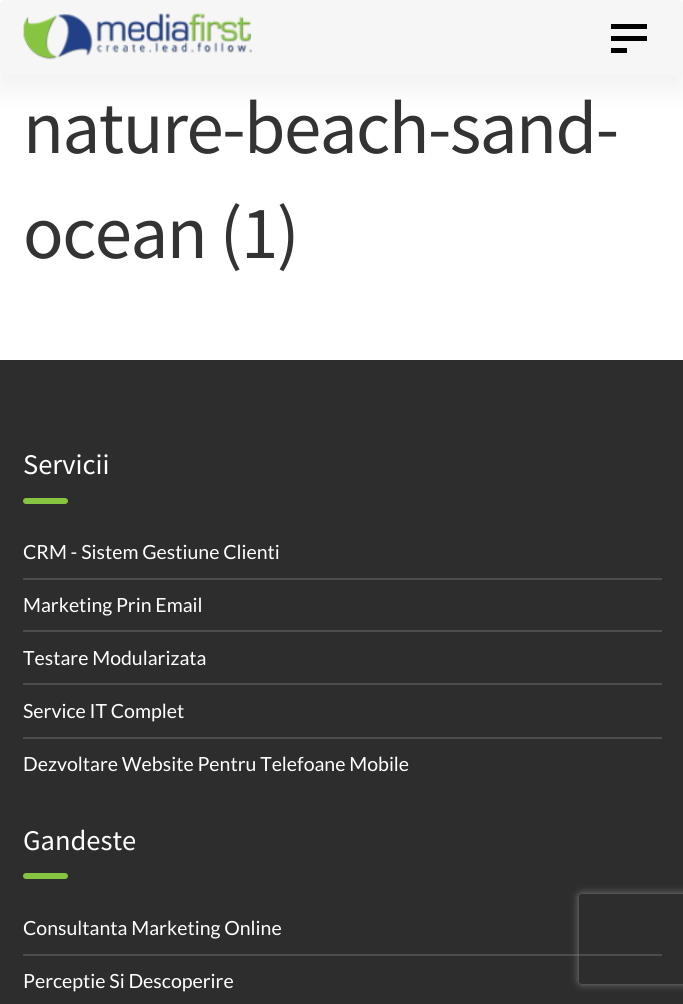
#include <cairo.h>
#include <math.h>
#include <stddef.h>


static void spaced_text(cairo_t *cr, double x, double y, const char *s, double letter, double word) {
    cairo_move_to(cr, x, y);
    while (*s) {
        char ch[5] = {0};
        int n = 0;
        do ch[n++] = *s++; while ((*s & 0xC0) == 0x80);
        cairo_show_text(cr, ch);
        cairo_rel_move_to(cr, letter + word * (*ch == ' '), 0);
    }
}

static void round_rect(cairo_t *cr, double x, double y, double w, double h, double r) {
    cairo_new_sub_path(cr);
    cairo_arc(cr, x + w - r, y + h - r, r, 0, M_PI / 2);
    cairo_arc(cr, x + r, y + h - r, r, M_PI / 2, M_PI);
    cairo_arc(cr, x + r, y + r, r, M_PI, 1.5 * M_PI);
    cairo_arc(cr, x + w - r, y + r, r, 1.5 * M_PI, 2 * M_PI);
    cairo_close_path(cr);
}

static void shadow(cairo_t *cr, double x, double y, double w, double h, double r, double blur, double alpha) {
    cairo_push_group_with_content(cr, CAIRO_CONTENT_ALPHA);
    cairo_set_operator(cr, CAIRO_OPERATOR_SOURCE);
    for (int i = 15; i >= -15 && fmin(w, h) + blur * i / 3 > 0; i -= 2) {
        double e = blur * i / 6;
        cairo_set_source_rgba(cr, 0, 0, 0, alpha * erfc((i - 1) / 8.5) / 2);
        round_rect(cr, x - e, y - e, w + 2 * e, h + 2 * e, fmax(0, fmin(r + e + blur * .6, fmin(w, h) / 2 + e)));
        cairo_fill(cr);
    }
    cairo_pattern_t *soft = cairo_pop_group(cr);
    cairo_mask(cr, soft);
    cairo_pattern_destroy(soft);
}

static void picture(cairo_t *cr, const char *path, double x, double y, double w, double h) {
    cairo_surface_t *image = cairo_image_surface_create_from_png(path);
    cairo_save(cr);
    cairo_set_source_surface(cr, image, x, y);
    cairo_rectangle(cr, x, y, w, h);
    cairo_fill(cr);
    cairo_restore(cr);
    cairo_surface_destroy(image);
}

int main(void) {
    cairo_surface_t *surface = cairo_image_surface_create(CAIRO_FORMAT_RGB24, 683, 1004);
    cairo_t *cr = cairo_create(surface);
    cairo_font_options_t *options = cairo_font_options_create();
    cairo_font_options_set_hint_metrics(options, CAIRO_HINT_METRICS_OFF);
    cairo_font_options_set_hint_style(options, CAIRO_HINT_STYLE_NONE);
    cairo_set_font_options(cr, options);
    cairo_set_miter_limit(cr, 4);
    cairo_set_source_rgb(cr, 1, 1, 1);
    cairo_paint(cr);
    cairo_set_source_rgb(cr, 0, 0, 0);
    shadow(cr, 0, 15, 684, 75, 0, 15, 0.06);
    cairo_set_source_rgb(cr, 0.961, 0.961, 0.961);
    round_rect(cr, 0, 0, 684, 75, 5);
    cairo_fill(cr);
    picture(cr, "img1.png", 23, 13, 229, 47);
    cairo_set_source_rgb(cr, 0, 0, 0);
    cairo_rectangle(cr, 611, 24, 36, 5);
    cairo_fill(cr);
    cairo_rectangle(cr, 611, 36, 36, 5);
    cairo_fill(cr);
    cairo_rectangle(cr, 611, 48, 16, 5);
    cairo_fill(cr);
    cairo_select_font_face(cr, "Source Sans Pro", CAIRO_FONT_SLANT_NORMAL, CAIRO_FONT_WEIGHT_NORMAL);
    cairo_set_font_size(cr, 75);
    cairo_set_source_rgb(cr, 0.2, 0.2, 0.2);
    spaced_text(cr, 23, 153, "nature-beach-sand-", -1.5, 0);
    spaced_text(cr, 23, 258, "ocean (1)", -1.5, 0);
    cairo_set_source_rgb(cr, 0.176, 0.176, 0.176);
    cairo_rectangle(cr, 0, 360, 683, 644);
    cairo_fill(cr);
    cairo_set_font_size(cr, 28.5);
    cairo_set_source_rgb(cr, 1, 1, 1);
    cairo_move_to(cr, 23, 474);
    cairo_show_text(cr, "Servicii");
    cairo_set_source_rgb(cr, 0.529, 0.773, 0.255);
    round_rect(cr, 23, 498, 45, 6, 3);
    cairo_fill(cr);
    cairo_set_source_rgb(cr, 0.302, 0.302, 0.302);
    cairo_rectangle(cr, 23, 578, 639, 2);
    cairo_fill(cr);
    cairo_select_font_face(cr, "Lato", CAIRO_FONT_SLANT_NORMAL, CAIRO_FONT_WEIGHT_NORMAL);
    cairo_set_font_size(cr, 19.5);
    cairo_set_source_rgb(cr, 1, 1, 1);
    cairo_move_to(cr, 23, 559);
    cairo_show_text(cr, "CRM - Sistem Gestiune Clienti");
    cairo_set_source_rgb(cr, 0.302, 0.302, 0.302);
    cairo_rectangle(cr, 23, 630, 639, 2);
    cairo_fill(cr);
    cairo_set_source_rgb(cr, 1, 1, 1);
    cairo_move_to(cr, 23, 612);
    cairo_show_text(cr, "Marketing Prin Email");
    cairo_set_source_rgb(cr, 0.302, 0.302, 0.302);
    cairo_rectangle(cr, 23, 683, 639, 2);
    cairo_fill(cr);
    cairo_set_source_rgb(cr, 1, 1, 1);
    cairo_move_to(cr, 23, 665);
    cairo_show_text(cr, "Testare Modularizata");
    cairo_set_source_rgb(cr, 0.302, 0.302, 0.302);
    cairo_rectangle(cr, 23, 737, 639, 2);
    cairo_fill(cr);
    cairo_set_source_rgb(cr, 1, 1, 1);
    cairo_move_to(cr, 23, 718);
    cairo_show_text(cr, "Service IT Complet");
    cairo_move_to(cr, 23, 771);
    cairo_show_text(cr, "Dezvoltare Website Pentru Telefoane Mobile");
    cairo_select_font_face(cr, "Source Sans Pro", CAIRO_FONT_SLANT_NORMAL, CAIRO_FONT_WEIGHT_NORMAL);
    cairo_set_font_size(cr, 28.5);
    cairo_move_to(cr, 23, 850);
    cairo_show_text(cr, "Gandeste");
    cairo_set_source_rgb(cr, 0.529, 0.773, 0.255);
    round_rect(cr, 23, 873, 45, 6, 3);
    cairo_fill(cr);
    cairo_set_source_rgb(cr, 0.302, 0.302, 0.302);
    cairo_rectangle(cr, 23, 954, 639, 2);
    cairo_fill(cr);
    cairo_select_font_face(cr, "Lato", CAIRO_FONT_SLANT_NORMAL, CAIRO_FONT_WEIGHT_NORMAL);
    cairo_set_font_size(cr, 19.5);
    cairo_set_source_rgb(cr, 1, 1, 1);
    cairo_move_to(cr, 23, 935);
    cairo_show_text(cr, "Consultanta Marketing Online");
    cairo_move_to(cr, 23, 988);
    cairo_show_text(cr, "Perceptie Si Descoperire");
    cairo_save(cr);
    cairo_set_fill_rule(cr, CAIRO_FILL_RULE_EVEN_ODD);
    cairo_new_path(cr);
    cairo_move_to(cr, 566, 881);
    cairo_line_to(cr, 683, 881);
    cairo_line_to(cr, 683, 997);
    cairo_line_to(cr, 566, 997);
    cairo_close_path(cr);
    cairo_move_to(cr, 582, 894);
    cairo_line_to(cr, 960, 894);
    cairo_curve_to(cr, 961.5, 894, 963, 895.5, 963, 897);
    cairo_line_to(cr, 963, 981);
    cairo_curve_to(cr, 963, 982.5, 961.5, 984, 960, 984);
    cairo_line_to(cr, 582, 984);
    cairo_curve_to(cr, 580.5, 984, 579, 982.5, 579, 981);
    cairo_line_to(cr, 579, 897);
    cairo_curve_to(cr, 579, 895.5, 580.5, 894, 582, 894);
    cairo_close_path(cr);
    cairo_clip(cr);
    cairo_set_source_rgb(cr, 0.502, 0.502, 0.502);
    shadow(cr, 579, 894, 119, 90, 3, 4, 1);
    cairo_restore(cr);
    cairo_surface_write_to_png(surface, "page.png");
    cairo_font_options_destroy(options);
    cairo_destroy(cr);
    cairo_surface_destroy(surface);
    return 0;
}
